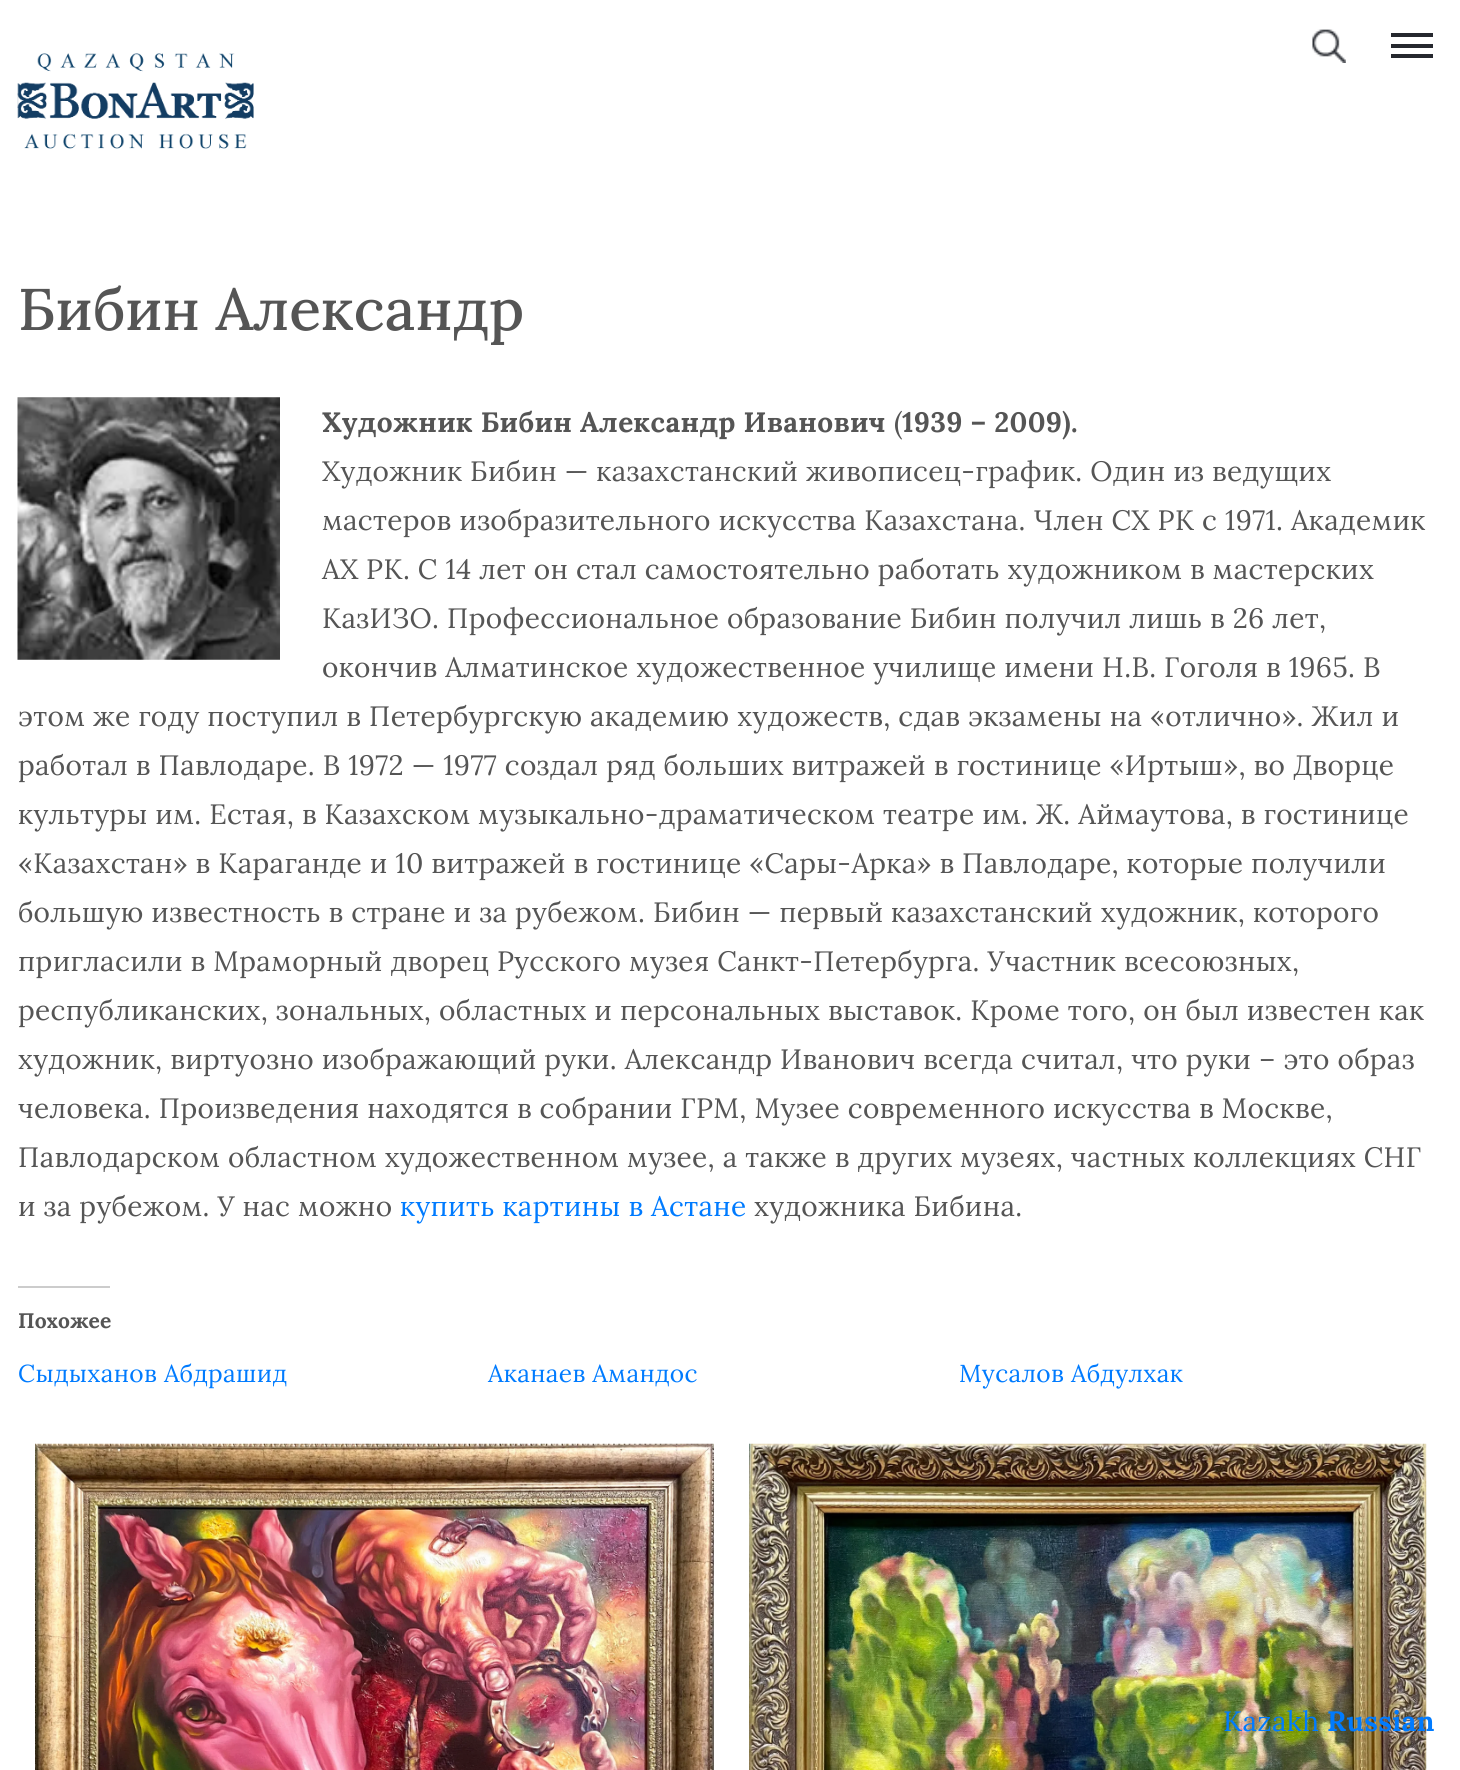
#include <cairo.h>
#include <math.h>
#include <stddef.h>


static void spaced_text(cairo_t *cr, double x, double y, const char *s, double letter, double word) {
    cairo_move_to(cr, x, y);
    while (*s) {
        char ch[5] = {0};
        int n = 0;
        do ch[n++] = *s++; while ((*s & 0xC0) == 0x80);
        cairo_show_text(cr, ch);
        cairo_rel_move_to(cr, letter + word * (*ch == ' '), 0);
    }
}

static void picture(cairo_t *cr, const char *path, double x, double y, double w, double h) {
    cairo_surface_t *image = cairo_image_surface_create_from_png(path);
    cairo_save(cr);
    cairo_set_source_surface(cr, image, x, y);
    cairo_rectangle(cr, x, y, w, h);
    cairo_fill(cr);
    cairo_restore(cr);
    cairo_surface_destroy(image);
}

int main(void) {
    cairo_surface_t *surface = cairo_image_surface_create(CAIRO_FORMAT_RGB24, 1460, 1770);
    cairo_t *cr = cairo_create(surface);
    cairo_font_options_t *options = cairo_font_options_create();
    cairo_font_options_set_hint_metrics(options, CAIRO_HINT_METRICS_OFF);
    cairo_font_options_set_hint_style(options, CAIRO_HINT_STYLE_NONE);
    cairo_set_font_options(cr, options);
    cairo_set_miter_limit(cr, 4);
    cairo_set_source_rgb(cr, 1, 1, 1);
    cairo_paint(cr);
    picture(cr, "img1.png", 1312, 29, 34, 34);
    cairo_set_source_rgb(cr, 0.145, 0.157, 0.18);
    cairo_rectangle(cr, 1391, 33, 42, 4);
    cairo_fill(cr);
    cairo_rectangle(cr, 1391, 44, 42, 4);
    cairo_fill(cr);
    cairo_rectangle(cr, 1391, 54, 42, 4);
    cairo_fill(cr);
    picture(cr, "img2.png", 17, 53, 237, 96);
    cairo_select_font_face(cr, "Lora Medium", CAIRO_FONT_SLANT_NORMAL, CAIRO_FONT_WEIGHT_NORMAL);
    cairo_set_font_size(cr, 58.75);
    cairo_set_source_rgb(cr, 0.333, 0.333, 0.333);
    cairo_move_to(cr, 18, 330);
    cairo_show_text(cr, "Бибин Александр");
    picture(cr, "img3.png", 17, 397, 263, 263);
    cairo_select_font_face(cr, "Lora", CAIRO_FONT_SLANT_NORMAL, CAIRO_FONT_WEIGHT_BOLD);
    cairo_set_font_size(cr, 28);
    spaced_text(cr, 322, 432, "Художник Бибин Александр Иванович", 0.35, 0);
    cairo_select_font_face(cr, "Lora", CAIRO_FONT_SLANT_NORMAL, CAIRO_FONT_WEIGHT_NORMAL);
    spaced_text(cr, 894, 432, "(", 0.35, 0);
    cairo_select_font_face(cr, "Lora", CAIRO_FONT_SLANT_NORMAL, CAIRO_FONT_WEIGHT_BOLD);
    spaced_text(cr, 902, 432, "1939 – 2009).", 0.35, 0);
    cairo_select_font_face(cr, "Lora", CAIRO_FONT_SLANT_NORMAL, CAIRO_FONT_WEIGHT_NORMAL);
    spaced_text(cr, 322, 481, "Художник Бибин — казахстанский живописец-график. Один из ведущих", 0.35, 0);
    spaced_text(cr, 322, 530, "мастеров изобразительного искусства Казахстана. Член СХ РК с 1971. Академик", 0.35, 0);
    spaced_text(cr, 322, 579, "АХ РК. С 14 лет он стал самостоятельно работать художником в мастерских", 0.35, 0);
    spaced_text(cr, 322, 628, "КазИЗО. Профессиональное образование Бибин получил лишь в 26 лет,", 0.35, 0);
    spaced_text(cr, 322, 677, "окончив Алматинское художественное училище имени Н.В. Гоголя в 1965. В", 0.35, 0);
    spaced_text(cr, 18, 726, "этом же году поступил в Петербургскую академию художеств, сдав экзамены на «отлично». Жил и", 0.35, 0);
    spaced_text(cr, 18, 775, "работал в Павлодаре. В 1972 — 1977 создал ряд больших витражей в гостинице «Иртыш», во Дворце", 0.35, 0);
    spaced_text(cr, 18, 824, "культуры им. Естая, в Казахском музыкально-драматическом театре им. Ж. Аймаутова, в гостинице", 0.35, 0);
    spaced_text(cr, 18, 873, "«Казахстан» в Караганде и 10 витражей в гостинице «Сары-Арка» в Павлодаре, которые получили", 0.35, 0);
    spaced_text(cr, 18, 922, "большую известность в стране и за рубежом. Бибин — первый казахстанский художник, которого", 0.35, 0);
    spaced_text(cr, 18, 971, "пригласили в Мраморный дворец Русского музея Санкт-Петербурга. Участник всесоюзных,", 0.35, 0);
    spaced_text(cr, 18, 1020, "республиканских, зональных, областных и персональных выставок. Кроме того, он был известен как", 0.35, 0);
    spaced_text(cr, 18, 1069, "художник, виртуозно изображающий руки. Александр Иванович всегда считал, что руки – это образ", 0.35, 0);
    spaced_text(cr, 18, 1118, "человека. Произведения находятся в собрании ГРМ, Музее современного искусства в Москве,", 0.35, 0);
    spaced_text(cr, 18, 1167, "Павлодарском областном художественном музее, а также в других музеях, частных коллекциях СНГ", 0.35, 0);
    spaced_text(cr, 18, 1216, "и за рубежом. У нас можно", 0.35, 0);
    cairo_set_source_rgb(cr, 0, 0.482, 1);
    spaced_text(cr, 400, 1216, "купить картины в Астане", 0.35, 0);
    cairo_set_source_rgb(cr, 0.333, 0.333, 0.333);
    spaced_text(cr, 754, 1216, "художника Бибина.", 0.35, 0);
    cairo_set_source_rgb(cr, 0.8, 0.8, 0.8);
    cairo_rectangle(cr, 18, 1286, 92, 2);
    cairo_fill(cr);
    cairo_select_font_face(cr, "Lora", CAIRO_FONT_SLANT_NORMAL, CAIRO_FONT_WEIGHT_BOLD);
    cairo_set_font_size(cr, 21);
    cairo_set_source_rgb(cr, 0.333, 0.333, 0.333);
    cairo_move_to(cr, 18, 1328);
    cairo_show_text(cr, "Похожее");
    cairo_select_font_face(cr, "Lora", CAIRO_FONT_SLANT_NORMAL, CAIRO_FONT_WEIGHT_NORMAL);
    cairo_set_font_size(cr, 24.5);
    cairo_set_source_rgb(cr, 0, 0.482, 1);
    spaced_text(cr, 18, 1382, "Сыдыханов Абдрашид", 0.35, 0);
    spaced_text(cr, 488, 1382, "Аканаев Амандос", 0.35, 0);
    spaced_text(cr, 959, 1382, "Мусалов Абдулхак", 0.35, 0);
    picture(cr, "img4.png", 35, 1443, 679, 327);
    picture(cr, "img5.png", 749, 1443, 678, 327);
    cairo_set_font_size(cr, 28);
    spaced_text(cr, 1223, 1731, "Kazakh", 0.35, 0);
    cairo_select_font_face(cr, "Lora", CAIRO_FONT_SLANT_NORMAL, CAIRO_FONT_WEIGHT_BOLD);
    spaced_text(cr, 1327, 1731, "Russian", 0.35, 0);
    cairo_surface_write_to_png(surface, "page.png");
    cairo_font_options_destroy(options);
    cairo_destroy(cr);
    cairo_surface_destroy(surface);
    return 0;
}
